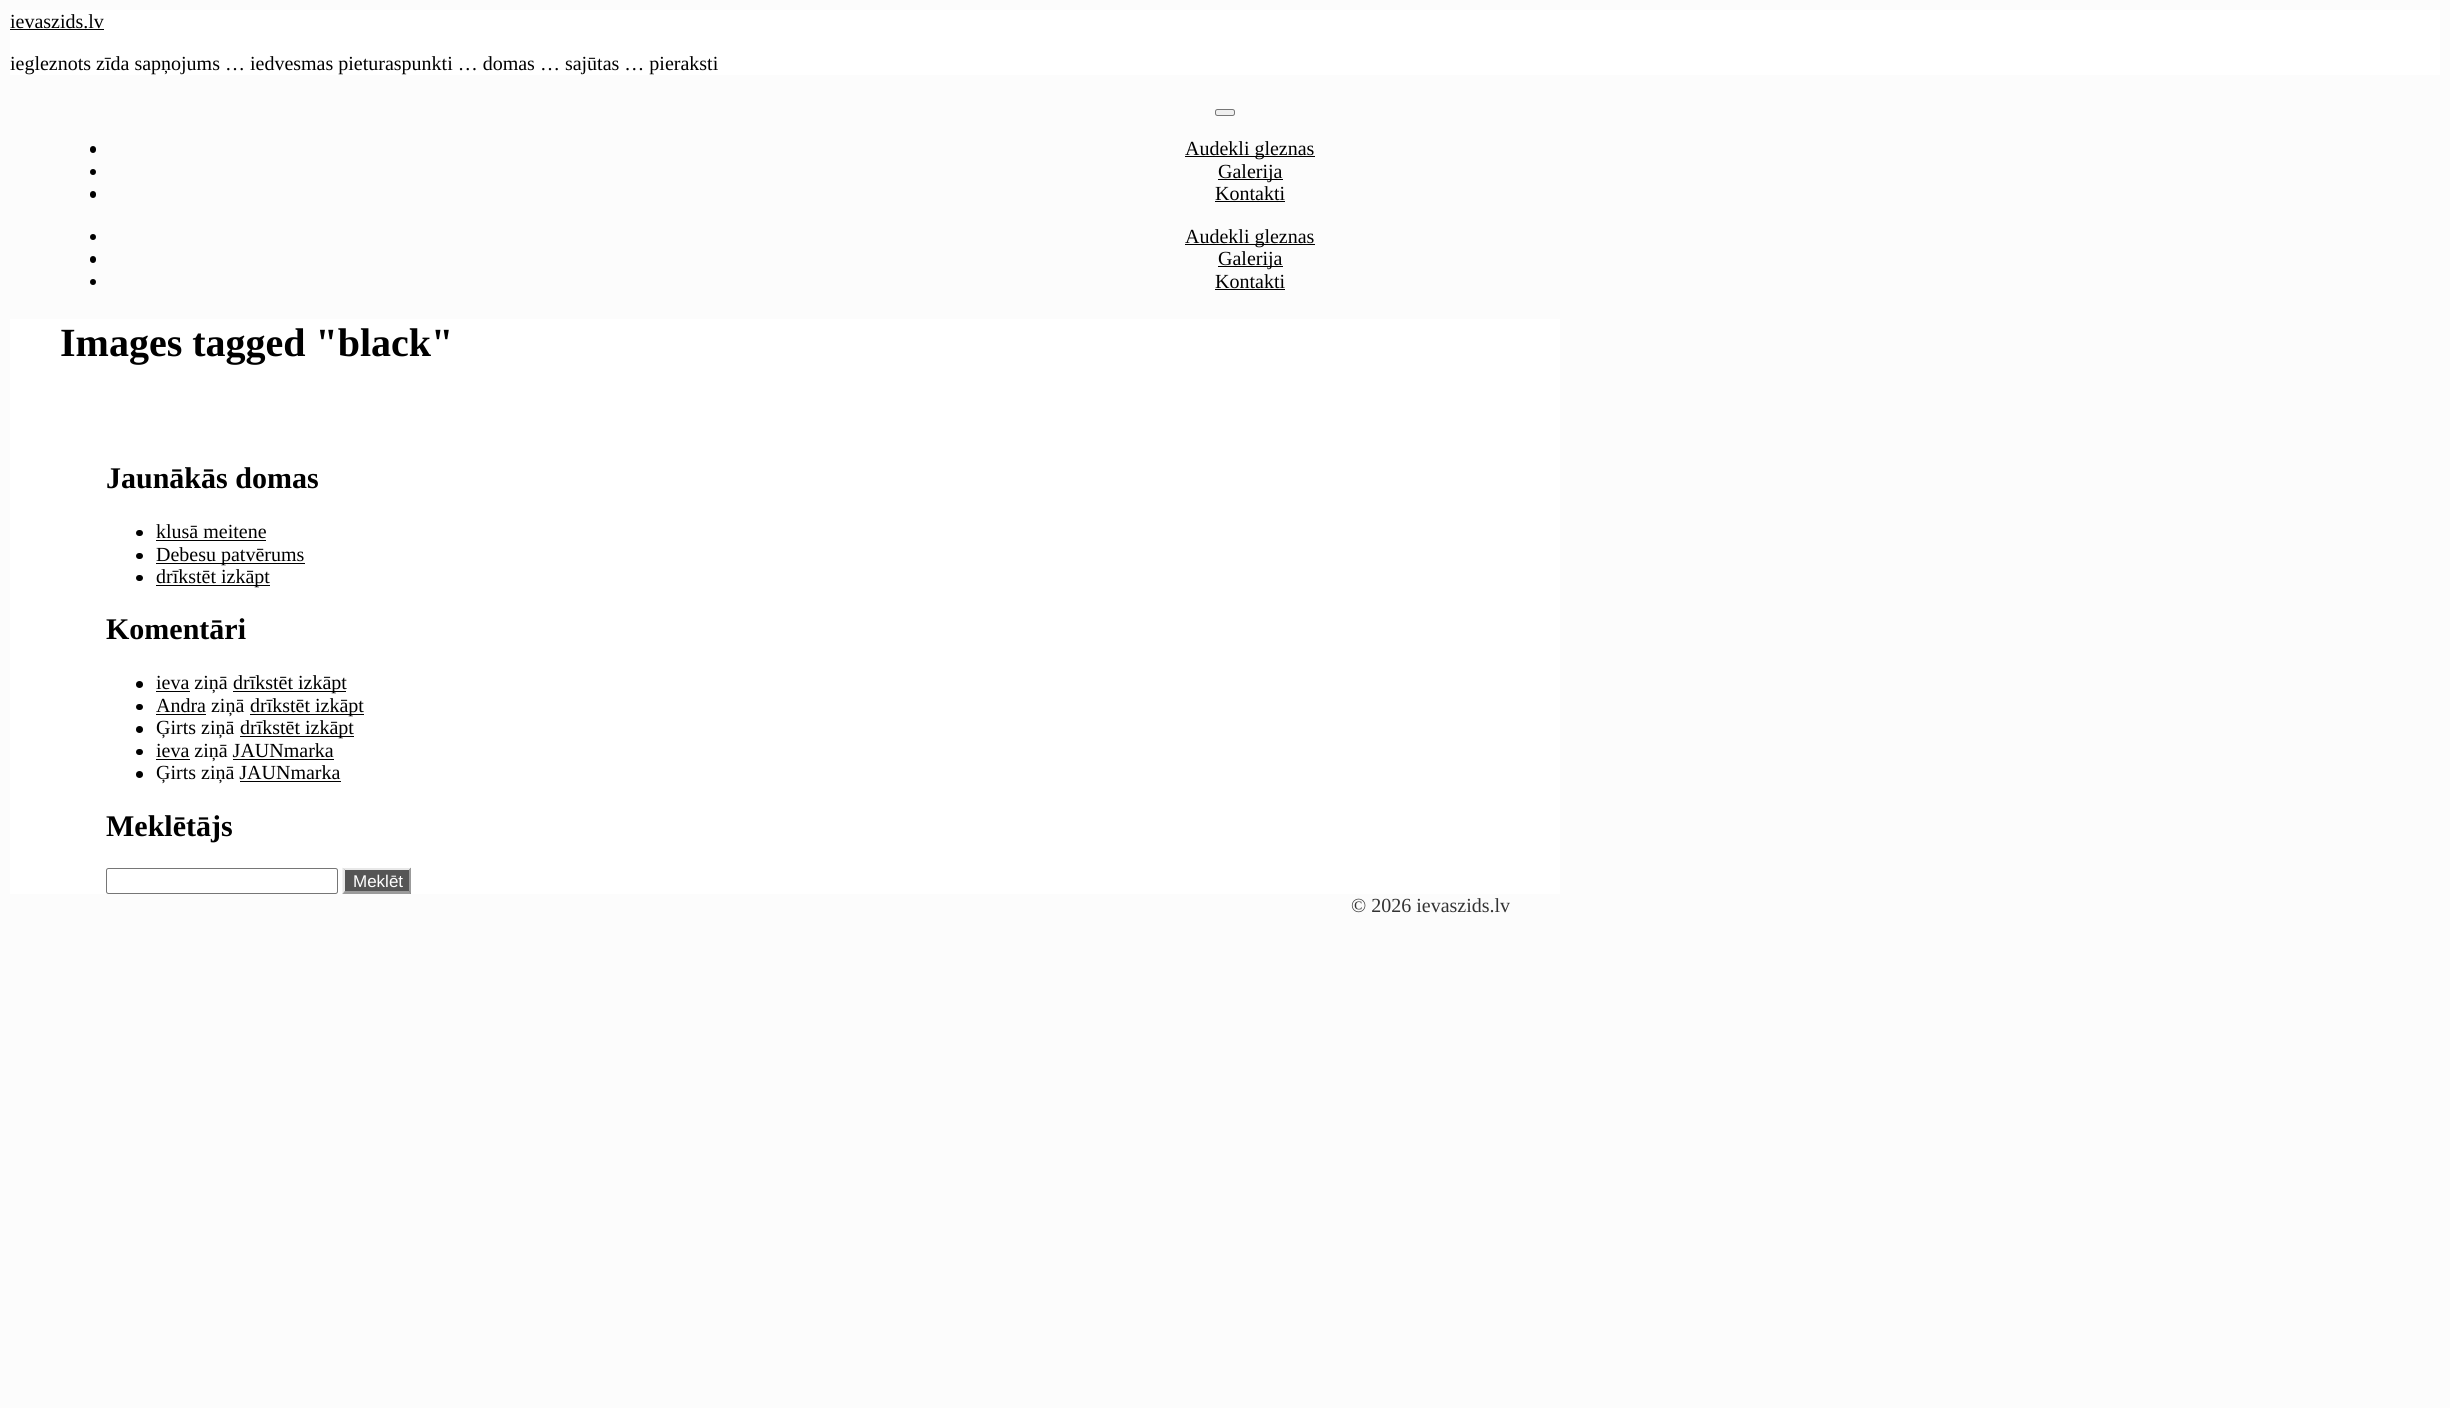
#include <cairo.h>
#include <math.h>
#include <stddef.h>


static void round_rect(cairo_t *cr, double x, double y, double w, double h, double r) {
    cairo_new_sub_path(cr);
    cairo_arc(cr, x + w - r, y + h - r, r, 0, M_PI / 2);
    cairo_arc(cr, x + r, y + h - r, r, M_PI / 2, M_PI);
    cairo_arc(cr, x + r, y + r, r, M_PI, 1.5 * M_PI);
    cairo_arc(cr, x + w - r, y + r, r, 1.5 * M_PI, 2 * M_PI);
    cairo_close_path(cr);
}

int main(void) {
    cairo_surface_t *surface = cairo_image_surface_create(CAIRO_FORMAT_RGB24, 2450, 1408);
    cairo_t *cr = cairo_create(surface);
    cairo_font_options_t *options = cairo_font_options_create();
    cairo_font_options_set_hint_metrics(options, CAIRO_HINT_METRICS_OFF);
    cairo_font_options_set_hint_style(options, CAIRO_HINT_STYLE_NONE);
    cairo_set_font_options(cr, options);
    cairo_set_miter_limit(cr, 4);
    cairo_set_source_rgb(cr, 0.988, 0.988, 0.988);
    cairo_paint(cr);
    cairo_set_source_rgb(cr, 1, 1, 1);
    cairo_rectangle(cr, 10, 10, 2430, 65);
    cairo_fill(cr);
    cairo_select_font_face(cr, "Liberation Serif", CAIRO_FONT_SLANT_NORMAL, CAIRO_FONT_WEIGHT_NORMAL);
    cairo_set_font_size(cr, 20);
    cairo_set_source_rgb(cr, 0, 0, 0);
    cairo_move_to(cr, 10, 28);
    cairo_show_text(cr, "ievaszids.lv");
    cairo_rectangle(cr, 10, 29, 94, 1);
    cairo_fill(cr);
    cairo_move_to(cr, 10, 70);
    cairo_show_text(cr, "iegleznots zīda sapņojums … iedvesmas pieturaspunkti … domas … sajūtas … pieraksti");
    cairo_set_source_rgb(cr, 0.937, 0.937, 0.937);
    round_rect(cr, 1215.5, 109.5, 19, 6, 2);
    cairo_fill_preserve(cr);
    cairo_set_source_rgb(cr, 0.463, 0.463, 0.463);
    cairo_set_line_width(cr, 1);
    cairo_stroke(cr);
    cairo_set_source_rgb(cr, 0, 0, 0);
    round_rect(cr, 90, 146, 6, 7, 3);
    cairo_fill(cr);
    cairo_rectangle(cr, 1185, 156, 130, 1);
    cairo_fill(cr);
    cairo_move_to(cr, 1185, 155);
    cairo_show_text(cr, "Audekli gleznas");
    cairo_new_path(cr);
    cairo_arc(cr, 93, 172, 3, 0, 2 * M_PI);
    cairo_fill(cr);
    cairo_rectangle(cr, 1218, 179, 65, 1);
    cairo_fill(cr);
    cairo_move_to(cr, 1218, 178);
    cairo_show_text(cr, "Galerija");
    round_rect(cr, 90, 191, 6, 7, 3);
    cairo_fill(cr);
    cairo_move_to(cr, 1215, 200);
    cairo_show_text(cr, "Kontakti");
    cairo_rectangle(cr, 1215, 201, 70, 1);
    cairo_fill(cr);
    cairo_arc(cr, 93, 237, 3, 0, 2 * M_PI);
    cairo_fill(cr);
    cairo_rectangle(cr, 1185, 244, 130, 1);
    cairo_fill(cr);
    cairo_move_to(cr, 1185, 243);
    cairo_show_text(cr, "Audekli gleznas");
    round_rect(cr, 90, 256, 6, 7, 3);
    cairo_fill(cr);
    cairo_rectangle(cr, 1218, 266, 65, 1);
    cairo_fill(cr);
    cairo_move_to(cr, 1218, 265);
    cairo_show_text(cr, "Galerija");
    cairo_new_path(cr);
    cairo_arc(cr, 93, 282, 3, 0, 2 * M_PI);
    cairo_fill(cr);
    cairo_move_to(cr, 1215, 288);
    cairo_show_text(cr, "Kontakti");
    cairo_rectangle(cr, 1215, 289, 70, 1);
    cairo_fill(cr);
    cairo_set_source_rgb(cr, 1, 1, 1);
    cairo_rectangle(cr, 10, 319, 1550, 575);
    cairo_fill(cr);
    cairo_select_font_face(cr, "Liberation Serif", CAIRO_FONT_SLANT_NORMAL, CAIRO_FONT_WEIGHT_BOLD);
    cairo_set_font_size(cr, 40);
    cairo_set_source_rgb(cr, 0, 0, 0);
    cairo_move_to(cr, 60, 356);
    cairo_show_text(cr, "Images tagged \"black\"");
    cairo_set_font_size(cr, 30);
    cairo_move_to(cr, 106, 488);
    cairo_show_text(cr, "Jaunākās domas");
    cairo_set_source_rgb(cr, 0.004, 0.004, 0.004);
    round_rect(cr, 136, 530, 7, 6, 3);
    cairo_fill(cr);
    cairo_select_font_face(cr, "Liberation Serif", CAIRO_FONT_SLANT_NORMAL, CAIRO_FONT_WEIGHT_NORMAL);
    cairo_set_font_size(cr, 20);
    cairo_set_source_rgb(cr, 0, 0, 0);
    cairo_move_to(cr, 156, 538);
    cairo_show_text(cr, "klusā meitene");
    cairo_set_source_rgb(cr, 0.004, 0.004, 0.004);
    cairo_rectangle(cr, 156, 540, 110, 1);
    cairo_fill(cr);
    round_rect(cr, 136, 553, 7, 6, 3);
    cairo_fill(cr);
    cairo_rectangle(cr, 156, 563, 149, 1);
    cairo_fill(cr);
    cairo_set_source_rgb(cr, 0, 0, 0);
    cairo_move_to(cr, 156, 561);
    cairo_show_text(cr, "Debesu patvērums");
    cairo_set_source_rgb(cr, 0.004, 0.004, 0.004);
    round_rect(cr, 136, 575, 7, 6, 3);
    cairo_fill(cr);
    cairo_rectangle(cr, 156, 585, 114, 1);
    cairo_fill(cr);
    cairo_set_source_rgb(cr, 0, 0, 0);
    cairo_move_to(cr, 156, 583);
    cairo_show_text(cr, "drīkstēt izkāpt");
    cairo_select_font_face(cr, "Liberation Serif", CAIRO_FONT_SLANT_NORMAL, CAIRO_FONT_WEIGHT_BOLD);
    cairo_set_font_size(cr, 30);
    cairo_move_to(cr, 106, 639);
    cairo_show_text(cr, "Komentāri");
    cairo_set_source_rgb(cr, 0.004, 0.004, 0.004);
    cairo_new_path(cr);
    cairo_arc(cr, 139.5, 684.5, 3.5, 0, 2 * M_PI);
    cairo_fill(cr);
    cairo_rectangle(cr, 156, 691, 34, 1);
    cairo_fill(cr);
    cairo_select_font_face(cr, "Liberation Serif", CAIRO_FONT_SLANT_NORMAL, CAIRO_FONT_WEIGHT_NORMAL);
    cairo_set_font_size(cr, 20);
    cairo_set_source_rgb(cr, 0, 0, 0);
    cairo_move_to(cr, 156, 689);
    cairo_show_text(cr, "ieva ziņā");
    cairo_set_source_rgb(cr, 0.004, 0.004, 0.004);
    cairo_rectangle(cr, 233, 691, 113, 1);
    cairo_fill(cr);
    cairo_set_source_rgb(cr, 0, 0, 0);
    cairo_move_to(cr, 233, 689);
    cairo_show_text(cr, "drīkstēt izkāpt");
    cairo_set_source_rgb(cr, 0.004, 0.004, 0.004);
    round_rect(cr, 136, 704, 7, 6, 3);
    cairo_fill(cr);
    cairo_rectangle(cr, 156, 714, 50, 1);
    cairo_fill(cr);
    cairo_set_source_rgb(cr, 0, 0, 0);
    cairo_move_to(cr, 156, 712);
    cairo_show_text(cr, "Andra ziņā");
    cairo_set_source_rgb(cr, 0.004, 0.004, 0.004);
    cairo_rectangle(cr, 250, 714, 114, 1);
    cairo_fill(cr);
    cairo_set_source_rgb(cr, 0, 0, 0);
    cairo_move_to(cr, 250, 712);
    cairo_show_text(cr, "drīkstēt izkāpt");
    cairo_set_source_rgb(cr, 0.004, 0.004, 0.004);
    cairo_new_path(cr);
    cairo_arc(cr, 139.5, 729.5, 3.5, 0, 2 * M_PI);
    cairo_fill(cr);
    cairo_set_source_rgb(cr, 0, 0, 0);
    cairo_move_to(cr, 156, 734);
    cairo_show_text(cr, "Ģirts ziņā");
    cairo_set_source_rgb(cr, 0.004, 0.004, 0.004);
    cairo_rectangle(cr, 240, 736, 114, 1);
    cairo_fill(cr);
    cairo_set_source_rgb(cr, 0, 0, 0);
    cairo_move_to(cr, 240, 734);
    cairo_show_text(cr, "drīkstēt izkāpt");
    cairo_set_source_rgb(cr, 0.004, 0.004, 0.004);
    round_rect(cr, 136, 749, 7, 6, 3);
    cairo_fill(cr);
    cairo_rectangle(cr, 156, 759, 34, 1);
    cairo_fill(cr);
    cairo_set_source_rgb(cr, 0, 0, 0);
    cairo_move_to(cr, 156, 757);
    cairo_show_text(cr, "ieva ziņā JAUNmarka");
    cairo_set_source_rgb(cr, 0.004, 0.004, 0.004);
    cairo_rectangle(cr, 233, 759, 101, 1);
    cairo_fill(cr);
    cairo_arc(cr, 139.5, 774.5, 3.5, 0, 2 * M_PI);
    cairo_fill(cr);
    cairo_set_source_rgb(cr, 0, 0, 0);
    cairo_move_to(cr, 156, 779);
    cairo_show_text(cr, "Ģirts ziņā JAUNmarka");
    cairo_set_source_rgb(cr, 0.004, 0.004, 0.004);
    cairo_rectangle(cr, 240, 781, 101, 1);
    cairo_fill(cr);
    cairo_select_font_face(cr, "Liberation Serif", CAIRO_FONT_SLANT_NORMAL, CAIRO_FONT_WEIGHT_BOLD);
    cairo_set_font_size(cr, 30);
    cairo_set_source_rgb(cr, 0, 0, 0);
    cairo_move_to(cr, 106, 836);
    cairo_show_text(cr, "Meklētājs");
    round_rect(cr, 106.5, 868.5, 231, 25, 2);
    cairo_set_source_rgb(cr, 0.463, 0.463, 0.463);
    cairo_stroke(cr);
    cairo_set_source_rgb(cr, 0.333, 0.333, 0.333);
    cairo_rectangle(cr, 343, 868, 68, 26);
    cairo_fill(cr);
    cairo_set_source_rgb(cr, 0.91, 0.91, 0.91);
    cairo_new_path(cr);
    cairo_move_to(cr, 342, 868);
    cairo_line_to(cr, 411, 868);
    cairo_line_to(cr, 409, 870);
    cairo_line_to(cr, 345, 870);
    cairo_close_path(cr);
    cairo_fill(cr);
    cairo_set_source_rgb(cr, 0.608, 0.608, 0.608);
    cairo_new_path(cr);
    cairo_move_to(cr, 411, 867.5);
    cairo_line_to(cr, 411, 894);
    cairo_line_to(cr, 409, 891);
    cairo_line_to(cr, 409, 870);
    cairo_close_path(cr);
    cairo_fill(cr);
    cairo_new_path(cr);
    cairo_move_to(cr, 411, 894);
    cairo_line_to(cr, 342, 894);
    cairo_line_to(cr, 345, 891);
    cairo_line_to(cr, 409, 891);
    cairo_close_path(cr);
    cairo_fill(cr);
    cairo_set_source_rgb(cr, 0.91, 0.91, 0.91);
    cairo_new_path(cr);
    cairo_move_to(cr, 342.5, 894);
    cairo_line_to(cr, 342.5, 867.5);
    cairo_line_to(cr, 345, 870);
    cairo_line_to(cr, 345, 891);
    cairo_close_path(cr);
    cairo_fill(cr);
    cairo_select_font_face(cr, "Liberation Sans", CAIRO_FONT_SLANT_NORMAL, CAIRO_FONT_WEIGHT_NORMAL);
    cairo_set_font_size(cr, 17);
    cairo_set_source_rgb(cr, 1, 1, 1);
    cairo_move_to(cr, 353, 887);
    cairo_show_text(cr, "Meklēt");
    cairo_select_font_face(cr, "Liberation Serif", CAIRO_FONT_SLANT_NORMAL, CAIRO_FONT_WEIGHT_NORMAL);
    cairo_set_font_size(cr, 20);
    cairo_set_source_rgb(cr, 0.2, 0.2, 0.2);
    cairo_move_to(cr, 1351, 912);
    cairo_show_text(cr, "© 2026 ievaszids.lv");
    cairo_surface_write_to_png(surface, "page.png");
    cairo_font_options_destroy(options);
    cairo_destroy(cr);
    cairo_surface_destroy(surface);
    return 0;
}
